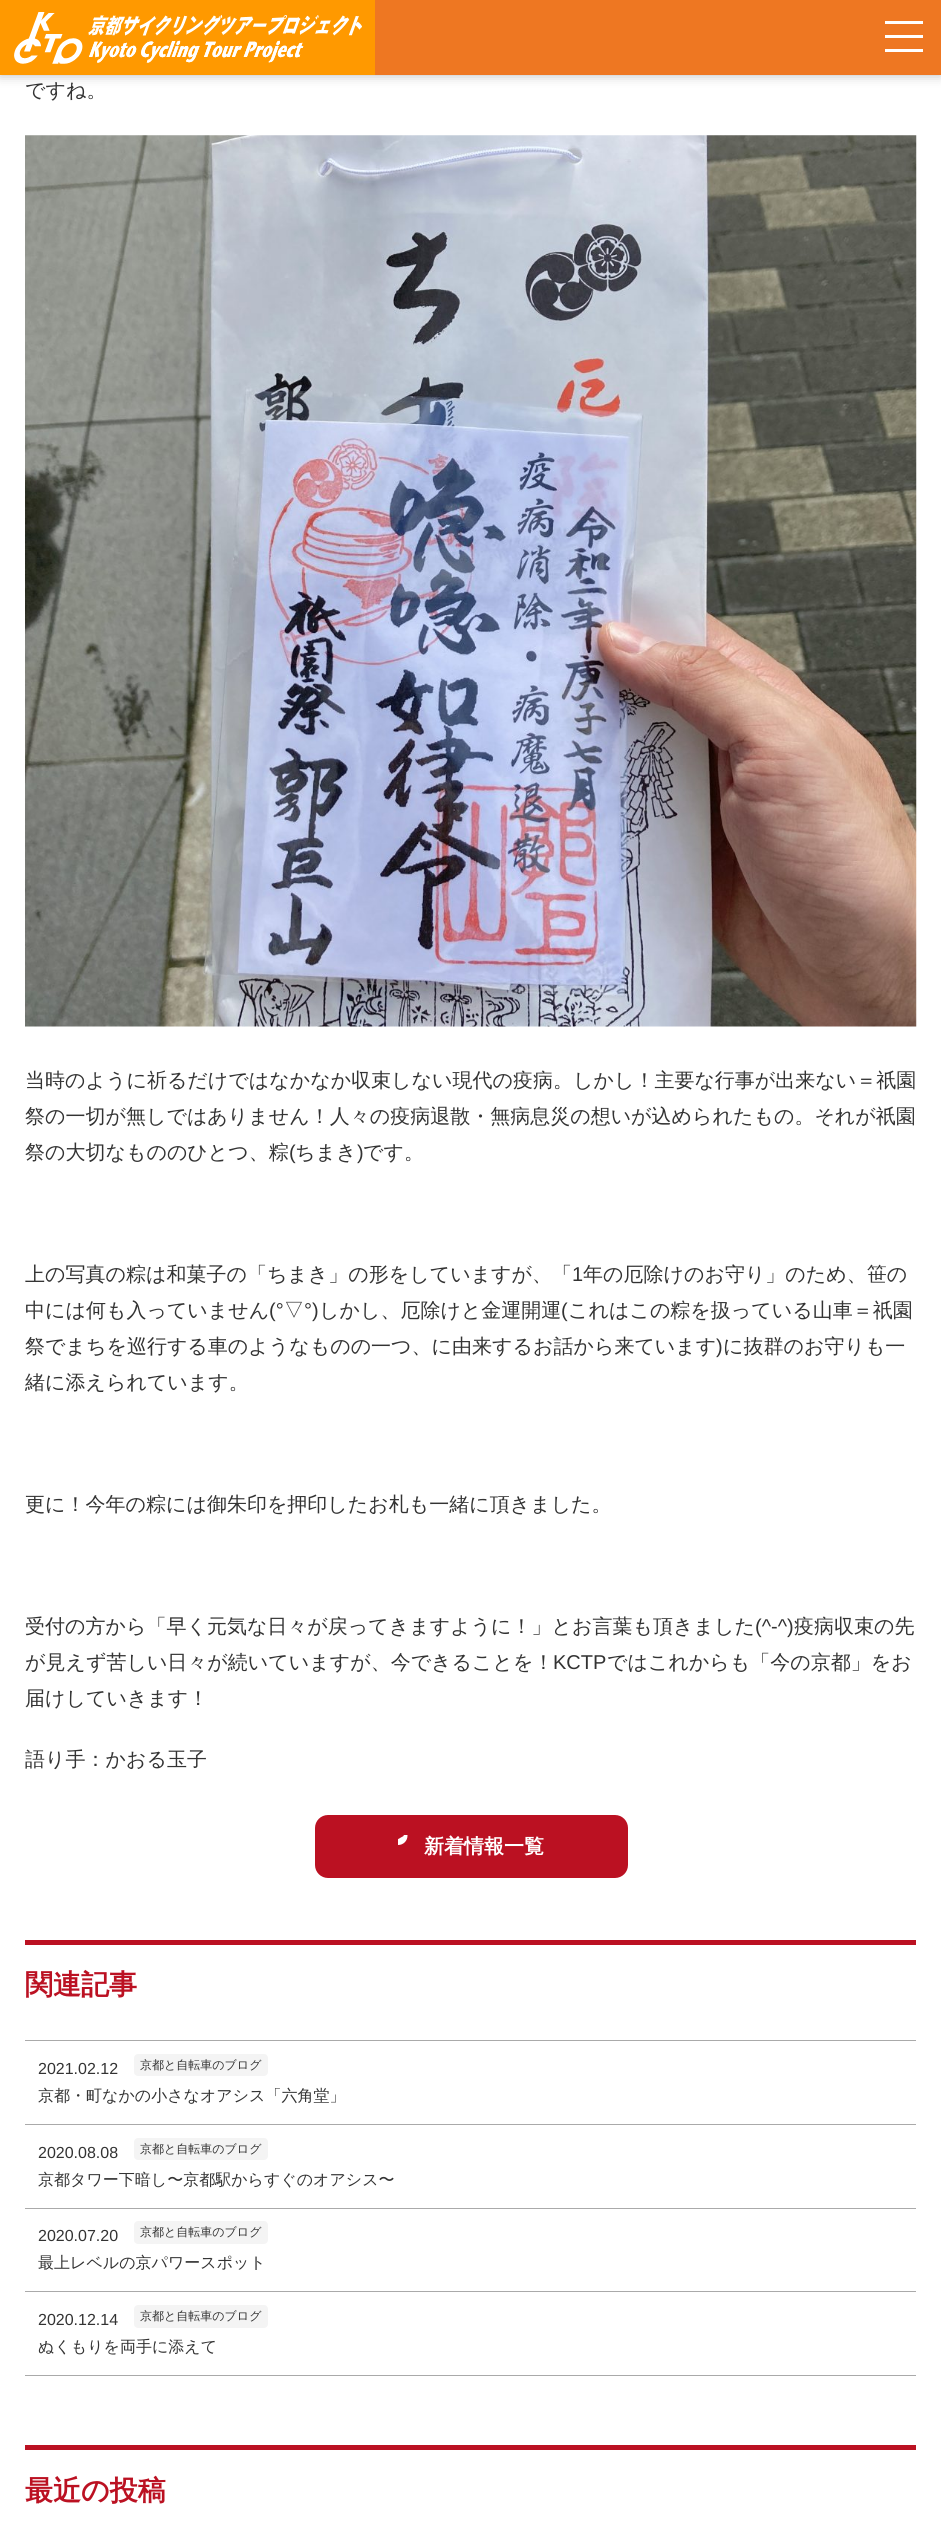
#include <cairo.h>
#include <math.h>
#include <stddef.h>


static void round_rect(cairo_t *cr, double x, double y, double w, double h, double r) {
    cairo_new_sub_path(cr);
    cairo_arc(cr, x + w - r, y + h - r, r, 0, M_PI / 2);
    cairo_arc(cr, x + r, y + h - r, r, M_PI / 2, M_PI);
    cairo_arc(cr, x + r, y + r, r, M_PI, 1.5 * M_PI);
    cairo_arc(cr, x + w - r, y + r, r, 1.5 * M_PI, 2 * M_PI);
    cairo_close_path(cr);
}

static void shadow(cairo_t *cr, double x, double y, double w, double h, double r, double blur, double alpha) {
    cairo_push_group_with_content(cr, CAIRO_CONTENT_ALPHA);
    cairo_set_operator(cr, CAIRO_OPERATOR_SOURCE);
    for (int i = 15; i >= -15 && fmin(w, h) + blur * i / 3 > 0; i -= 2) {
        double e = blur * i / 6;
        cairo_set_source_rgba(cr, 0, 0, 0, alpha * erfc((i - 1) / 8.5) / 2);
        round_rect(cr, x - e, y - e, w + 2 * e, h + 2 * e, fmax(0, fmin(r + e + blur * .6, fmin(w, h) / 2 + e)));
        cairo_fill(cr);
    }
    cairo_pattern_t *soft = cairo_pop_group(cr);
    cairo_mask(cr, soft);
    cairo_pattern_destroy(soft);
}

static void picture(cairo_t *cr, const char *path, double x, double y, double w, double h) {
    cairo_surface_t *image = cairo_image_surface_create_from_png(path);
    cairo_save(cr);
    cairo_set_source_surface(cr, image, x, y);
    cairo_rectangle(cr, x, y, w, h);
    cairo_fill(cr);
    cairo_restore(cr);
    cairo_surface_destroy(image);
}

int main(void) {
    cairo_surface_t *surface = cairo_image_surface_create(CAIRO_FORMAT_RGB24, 941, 2539);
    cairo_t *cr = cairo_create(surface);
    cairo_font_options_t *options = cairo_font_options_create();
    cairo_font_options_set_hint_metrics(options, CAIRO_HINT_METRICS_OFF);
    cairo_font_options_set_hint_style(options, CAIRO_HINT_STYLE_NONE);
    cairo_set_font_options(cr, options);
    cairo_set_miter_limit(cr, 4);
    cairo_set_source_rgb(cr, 1, 1, 1);
    cairo_paint(cr);
    cairo_set_source_rgb(cr, 0, 0, 0);
    shadow(cr, 0, 0, 941, 75, 0, 6, 0.27);
    cairo_set_source_rgb(cr, 0.933, 0.467, 0.133);
    cairo_rectangle(cr, 375, 0, 566, 75);
    cairo_fill(cr);
    cairo_set_source_rgb(cr, 1, 0.6, 0);
    cairo_rectangle(cr, 0, 0, 375, 75);
    cairo_fill(cr);
    picture(cr, "img1.png", 14, 12, 348, 52);
    cairo_set_source_rgb(cr, 1, 1, 1);
    cairo_rectangle(cr, 885, 21, 38, 3);
    cairo_fill(cr);
    cairo_rectangle(cr, 885, 35, 38, 3);
    cairo_fill(cr);
    cairo_rectangle(cr, 885, 49, 38, 3);
    cairo_fill(cr);
    cairo_select_font_face(cr, "WenQuanYi Zen Hei Medium", CAIRO_FONT_SLANT_NORMAL, CAIRO_FONT_WEIGHT_NORMAL);
    cairo_set_font_size(cr, 20);
    cairo_set_source_rgb(cr, 0.2, 0.2, 0.2);
    cairo_move_to(cr, 25, 97);
    cairo_show_text(cr, "ですね。");
    picture(cr, "img2.png", 25, 135, 892, 892);
    cairo_move_to(cr, 25, 1087);
    cairo_show_text(cr, "当時のように祈るだけではなかなか収束しない現代の疫病。しかし！主要な行事が出来ない＝祇園");
    cairo_move_to(cr, 25, 1123);
    cairo_show_text(cr, "祭の一切が無しではありません！人々の疫病退散・無病息災の想いが込められたもの。それが祇園");
    cairo_move_to(cr, 25, 1159);
    cairo_show_text(cr, "祭の大切なもののひとつ、粽");
    cairo_select_font_face(cr, "Liberation Sans", CAIRO_FONT_SLANT_NORMAL, CAIRO_FONT_WEIGHT_NORMAL);
    cairo_move_to(cr, 289, 1159);
    cairo_show_text(cr, "(");
    cairo_select_font_face(cr, "WenQuanYi Zen Hei Medium", CAIRO_FONT_SLANT_NORMAL, CAIRO_FONT_WEIGHT_NORMAL);
    cairo_move_to(cr, 295, 1159);
    cairo_show_text(cr, "ちまき");
    cairo_select_font_face(cr, "Liberation Sans", CAIRO_FONT_SLANT_NORMAL, CAIRO_FONT_WEIGHT_NORMAL);
    cairo_move_to(cr, 357, 1159);
    cairo_show_text(cr, ")");
    cairo_select_font_face(cr, "WenQuanYi Zen Hei Medium", CAIRO_FONT_SLANT_NORMAL, CAIRO_FONT_WEIGHT_NORMAL);
    cairo_move_to(cr, 363, 1159);
    cairo_show_text(cr, "です。");
    cairo_move_to(cr, 25, 1281);
    cairo_show_text(cr, "上の写真の粽は和菓子の「ちまき」の形をしていますが、「");
    cairo_select_font_face(cr, "Liberation Sans", CAIRO_FONT_SLANT_NORMAL, CAIRO_FONT_WEIGHT_NORMAL);
    cairo_move_to(cr, 572, 1281);
    cairo_show_text(cr, "1");
    cairo_select_font_face(cr, "WenQuanYi Zen Hei Medium", CAIRO_FONT_SLANT_NORMAL, CAIRO_FONT_WEIGHT_NORMAL);
    cairo_move_to(cr, 583, 1281);
    cairo_show_text(cr, "年の厄除けのお守り」のため、笹の");
    cairo_move_to(cr, 25, 1317);
    cairo_show_text(cr, "中には何も入っていません");
    cairo_select_font_face(cr, "Liberation Sans", CAIRO_FONT_SLANT_NORMAL, CAIRO_FONT_WEIGHT_NORMAL);
    cairo_move_to(cr, 269, 1317);
    cairo_show_text(cr, "(°");
    cairo_select_font_face(cr, "WenQuanYi Zen Hei Medium", CAIRO_FONT_SLANT_NORMAL, CAIRO_FONT_WEIGHT_NORMAL);
    cairo_move_to(cr, 284, 1317);
    cairo_show_text(cr, "▽");
    cairo_select_font_face(cr, "Liberation Sans", CAIRO_FONT_SLANT_NORMAL, CAIRO_FONT_WEIGHT_NORMAL);
    cairo_move_to(cr, 304, 1317);
    cairo_show_text(cr, "°)");
    cairo_select_font_face(cr, "WenQuanYi Zen Hei Medium", CAIRO_FONT_SLANT_NORMAL, CAIRO_FONT_WEIGHT_NORMAL);
    cairo_move_to(cr, 319, 1317);
    cairo_show_text(cr, "しかし、厄除けと金運開運");
    cairo_select_font_face(cr, "Liberation Sans", CAIRO_FONT_SLANT_NORMAL, CAIRO_FONT_WEIGHT_NORMAL);
    cairo_move_to(cr, 561, 1317);
    cairo_show_text(cr, "(");
    cairo_select_font_face(cr, "WenQuanYi Zen Hei Medium", CAIRO_FONT_SLANT_NORMAL, CAIRO_FONT_WEIGHT_NORMAL);
    cairo_move_to(cr, 568, 1317);
    cairo_show_text(cr, "これはこの粽を扱っている山車＝祇園");
    cairo_move_to(cr, 25, 1353);
    cairo_show_text(cr, "祭でまちを巡行する車のようなものの一つ、に由来するお話から来ています");
    cairo_select_font_face(cr, "Liberation Sans", CAIRO_FONT_SLANT_NORMAL, CAIRO_FONT_WEIGHT_NORMAL);
    cairo_move_to(cr, 716, 1353);
    cairo_show_text(cr, ")");
    cairo_select_font_face(cr, "WenQuanYi Zen Hei Medium", CAIRO_FONT_SLANT_NORMAL, CAIRO_FONT_WEIGHT_NORMAL);
    cairo_move_to(cr, 723, 1353);
    cairo_show_text(cr, "に抜群のお守りも一");
    cairo_move_to(cr, 25, 1389);
    cairo_show_text(cr, "緒に添えられています。");
    cairo_move_to(cr, 25, 1511);
    cairo_show_text(cr, "更に！今年の粽には御朱印を押印したお札も一緒に頂きました。");
    cairo_move_to(cr, 25, 1633);
    cairo_show_text(cr, "受付の方から「早く元気な日々が戻ってきますように！」とお言葉も頂きました");
    cairo_select_font_face(cr, "Liberation Sans", CAIRO_FONT_SLANT_NORMAL, CAIRO_FONT_WEIGHT_NORMAL);
    cairo_move_to(cr, 755, 1633);
    cairo_show_text(cr, "(^-^)");
    cairo_select_font_face(cr, "WenQuanYi Zen Hei Medium", CAIRO_FONT_SLANT_NORMAL, CAIRO_FONT_WEIGHT_NORMAL);
    cairo_move_to(cr, 794, 1633);
    cairo_show_text(cr, "疫病収束の先");
    cairo_move_to(cr, 25, 1669);
    cairo_show_text(cr, "が見えず苦しい日々が続いていますが、今できることを！");
    cairo_select_font_face(cr, "Liberation Sans", CAIRO_FONT_SLANT_NORMAL, CAIRO_FONT_WEIGHT_NORMAL);
    cairo_move_to(cr, 553, 1669);
    cairo_show_text(cr, "KCTP");
    cairo_select_font_face(cr, "WenQuanYi Zen Hei Medium", CAIRO_FONT_SLANT_NORMAL, CAIRO_FONT_WEIGHT_NORMAL);
    cairo_move_to(cr, 607, 1669);
    cairo_show_text(cr, "ではこれからも「今の京都」をお");
    cairo_move_to(cr, 25, 1705);
    cairo_show_text(cr, "届けしていきます！");
    cairo_move_to(cr, 25, 1766);
    cairo_show_text(cr, "語り手：かおる玉子");
    cairo_set_source_rgb(cr, 0.733, 0.067, 0.133);
    round_rect(cr, 315, 1815, 313, 63, 13);
    cairo_fill(cr);
    picture(cr, "img3.png", 398, 1835, 10, 10);
    cairo_select_font_face(cr, "WenQuanYi Zen Hei", CAIRO_FONT_SLANT_NORMAL, CAIRO_FONT_WEIGHT_BOLD);
    cairo_set_source_rgb(cr, 1, 1, 1);
    cairo_move_to(cr, 424, 1853);
    cairo_show_text(cr, "新着情報一覧");
    cairo_set_source_rgb(cr, 0.733, 0.067, 0.133);
    cairo_rectangle(cr, 25, 1940, 891, 5);
    cairo_fill(cr);
    cairo_set_font_size(cr, 28);
    cairo_move_to(cr, 25, 1994);
    cairo_show_text(cr, "関連記事");
    cairo_set_source_rgb(cr, 0.667, 0.667, 0.667);
    cairo_rectangle(cr, 25, 2040, 891, 1);
    cairo_fill(cr);
    cairo_rectangle(cr, 25, 2124, 891, 1);
    cairo_fill(cr);
    cairo_select_font_face(cr, "Liberation Sans", CAIRO_FONT_SLANT_NORMAL, CAIRO_FONT_WEIGHT_NORMAL);
    cairo_set_font_size(cr, 16);
    cairo_set_source_rgb(cr, 0.2, 0.2, 0.2);
    cairo_move_to(cr, 38, 2074);
    cairo_show_text(cr, "2021.02.12");
    cairo_set_source_rgb(cr, 0.957, 0.957, 0.957);
    round_rect(cr, 134, 2054, 134, 22, 4);
    cairo_fill(cr);
    cairo_select_font_face(cr, "WenQuanYi Zen Hei Medium", CAIRO_FONT_SLANT_NORMAL, CAIRO_FONT_WEIGHT_NORMAL);
    cairo_set_font_size(cr, 12);
    cairo_set_source_rgb(cr, 0.2, 0.2, 0.2);
    cairo_move_to(cr, 140, 2069);
    cairo_show_text(cr, "京都と自転車のブログ");
    cairo_set_font_size(cr, 16);
    cairo_move_to(cr, 38, 2101);
    cairo_show_text(cr, "京都・町なかの小さなオアシス「六角堂」");
    cairo_set_source_rgb(cr, 0.667, 0.667, 0.667);
    cairo_rectangle(cr, 25, 2208, 891, 1);
    cairo_fill(cr);
    cairo_select_font_face(cr, "Liberation Sans", CAIRO_FONT_SLANT_NORMAL, CAIRO_FONT_WEIGHT_NORMAL);
    cairo_set_source_rgb(cr, 0.2, 0.2, 0.2);
    cairo_move_to(cr, 38, 2158);
    cairo_show_text(cr, "2020.08.08");
    cairo_set_source_rgb(cr, 0.957, 0.957, 0.957);
    round_rect(cr, 134, 2138, 134, 22, 4);
    cairo_fill(cr);
    cairo_select_font_face(cr, "WenQuanYi Zen Hei Medium", CAIRO_FONT_SLANT_NORMAL, CAIRO_FONT_WEIGHT_NORMAL);
    cairo_set_font_size(cr, 12);
    cairo_set_source_rgb(cr, 0.2, 0.2, 0.2);
    cairo_move_to(cr, 140, 2153);
    cairo_show_text(cr, "京都と自転車のブログ");
    cairo_set_font_size(cr, 16);
    cairo_move_to(cr, 38, 2185);
    cairo_show_text(cr, "京都タワー下暗し〜京都駅からすぐのオアシス〜");
    cairo_set_source_rgb(cr, 0.667, 0.667, 0.667);
    cairo_rectangle(cr, 25, 2291, 891, 1);
    cairo_fill(cr);
    cairo_select_font_face(cr, "Liberation Sans", CAIRO_FONT_SLANT_NORMAL, CAIRO_FONT_WEIGHT_NORMAL);
    cairo_set_source_rgb(cr, 0.2, 0.2, 0.2);
    cairo_move_to(cr, 38, 2241);
    cairo_show_text(cr, "2020.07.20");
    cairo_set_source_rgb(cr, 0.957, 0.957, 0.957);
    round_rect(cr, 134, 2221, 134, 23, 4);
    cairo_fill(cr);
    cairo_select_font_face(cr, "WenQuanYi Zen Hei Medium", CAIRO_FONT_SLANT_NORMAL, CAIRO_FONT_WEIGHT_NORMAL);
    cairo_set_font_size(cr, 12);
    cairo_set_source_rgb(cr, 0.2, 0.2, 0.2);
    cairo_move_to(cr, 140, 2236);
    cairo_show_text(cr, "京都と自転車のブログ");
    cairo_set_font_size(cr, 16);
    cairo_move_to(cr, 38, 2268);
    cairo_show_text(cr, "最上レベルの京パワースポット");
    cairo_set_source_rgb(cr, 0.667, 0.667, 0.667);
    cairo_rectangle(cr, 25, 2375, 891, 1);
    cairo_fill(cr);
    cairo_select_font_face(cr, "Liberation Sans", CAIRO_FONT_SLANT_NORMAL, CAIRO_FONT_WEIGHT_NORMAL);
    cairo_set_source_rgb(cr, 0.2, 0.2, 0.2);
    cairo_move_to(cr, 38, 2325);
    cairo_show_text(cr, "2020.12.14");
    cairo_set_source_rgb(cr, 0.957, 0.957, 0.957);
    round_rect(cr, 134, 2305, 134, 23, 4);
    cairo_fill(cr);
    cairo_select_font_face(cr, "WenQuanYi Zen Hei Medium", CAIRO_FONT_SLANT_NORMAL, CAIRO_FONT_WEIGHT_NORMAL);
    cairo_set_font_size(cr, 12);
    cairo_set_source_rgb(cr, 0.2, 0.2, 0.2);
    cairo_move_to(cr, 140, 2320);
    cairo_show_text(cr, "京都と自転車のブログ");
    cairo_set_font_size(cr, 16);
    cairo_move_to(cr, 38, 2352);
    cairo_show_text(cr, "ぬくもりを両手に添えて");
    cairo_set_source_rgb(cr, 0.733, 0.067, 0.133);
    cairo_rectangle(cr, 25, 2445, 891, 5);
    cairo_fill(cr);
    cairo_select_font_face(cr, "WenQuanYi Zen Hei", CAIRO_FONT_SLANT_NORMAL, CAIRO_FONT_WEIGHT_BOLD);
    cairo_set_font_size(cr, 28);
    cairo_move_to(cr, 25, 2500);
    cairo_show_text(cr, "最近の投稿");
    cairo_surface_write_to_png(surface, "page.png");
    cairo_font_options_destroy(options);
    cairo_destroy(cr);
    cairo_surface_destroy(surface);
    return 0;
}
